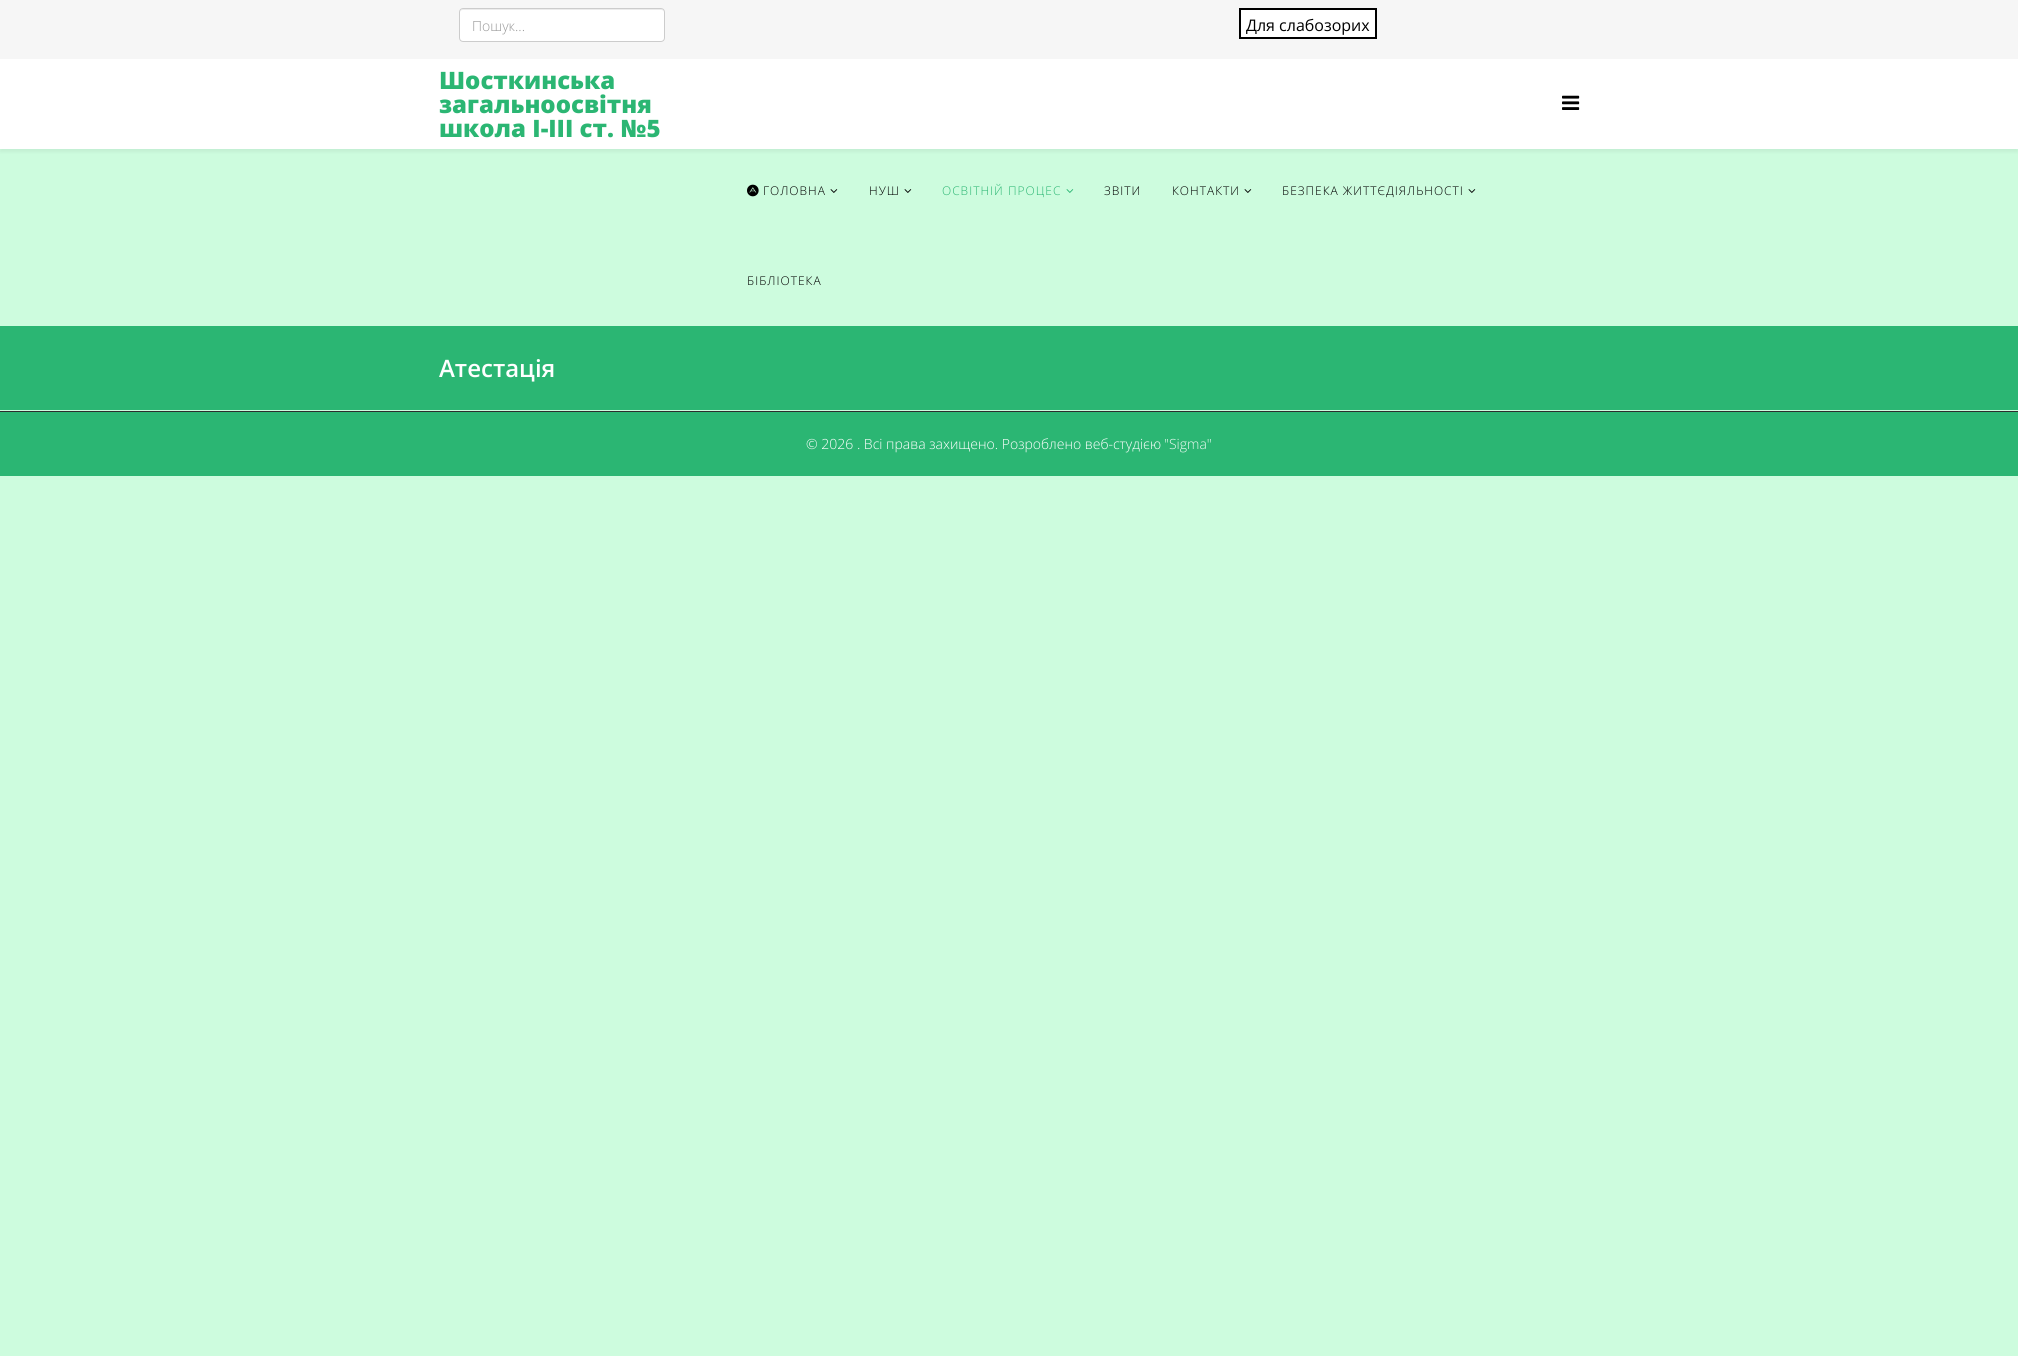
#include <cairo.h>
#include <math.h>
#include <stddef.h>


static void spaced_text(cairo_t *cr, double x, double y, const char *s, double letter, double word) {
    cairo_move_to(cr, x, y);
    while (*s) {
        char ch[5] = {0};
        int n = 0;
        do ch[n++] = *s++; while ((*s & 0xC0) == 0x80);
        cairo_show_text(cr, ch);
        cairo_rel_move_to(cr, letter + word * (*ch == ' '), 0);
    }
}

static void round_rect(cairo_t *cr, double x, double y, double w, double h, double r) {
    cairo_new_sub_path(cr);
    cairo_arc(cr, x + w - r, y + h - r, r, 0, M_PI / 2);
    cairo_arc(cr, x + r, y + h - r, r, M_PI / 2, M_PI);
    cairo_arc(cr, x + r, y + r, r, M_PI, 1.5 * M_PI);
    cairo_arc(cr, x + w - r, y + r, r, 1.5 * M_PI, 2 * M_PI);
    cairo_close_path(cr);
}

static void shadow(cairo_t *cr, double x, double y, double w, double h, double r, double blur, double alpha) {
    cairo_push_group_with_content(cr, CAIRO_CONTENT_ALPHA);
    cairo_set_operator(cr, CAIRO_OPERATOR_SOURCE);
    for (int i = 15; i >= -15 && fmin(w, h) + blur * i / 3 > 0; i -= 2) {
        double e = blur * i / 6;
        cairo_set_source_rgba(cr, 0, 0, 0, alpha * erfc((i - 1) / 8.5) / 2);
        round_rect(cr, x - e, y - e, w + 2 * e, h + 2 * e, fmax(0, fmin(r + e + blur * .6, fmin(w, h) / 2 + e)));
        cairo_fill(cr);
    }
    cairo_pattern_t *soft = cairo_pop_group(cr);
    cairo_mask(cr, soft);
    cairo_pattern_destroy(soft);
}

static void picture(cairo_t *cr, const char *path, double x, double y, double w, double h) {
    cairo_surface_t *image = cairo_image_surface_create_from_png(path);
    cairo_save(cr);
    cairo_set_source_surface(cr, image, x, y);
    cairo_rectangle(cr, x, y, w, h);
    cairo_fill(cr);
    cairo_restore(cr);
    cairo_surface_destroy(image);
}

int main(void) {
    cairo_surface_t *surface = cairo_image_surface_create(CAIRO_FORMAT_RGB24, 2018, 1356);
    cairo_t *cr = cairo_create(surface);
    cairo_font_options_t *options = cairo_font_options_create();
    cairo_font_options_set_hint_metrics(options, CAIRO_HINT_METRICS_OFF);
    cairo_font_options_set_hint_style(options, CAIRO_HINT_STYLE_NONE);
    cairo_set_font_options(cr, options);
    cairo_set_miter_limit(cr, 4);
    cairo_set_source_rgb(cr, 0.804, 0.988, 0.871);
    cairo_paint(cr);
    cairo_set_source_rgb(cr, 0.961, 0.961, 0.961);
    cairo_rectangle(cr, 0, 0, 2018, 59);
    cairo_fill(cr);
    cairo_set_source_rgb(cr, 1, 1, 1);
    round_rect(cr, 459, 8, 206, 34, 4);
    cairo_fill(cr);
    cairo_set_source_rgb(cr, 0.925, 0.925, 0.925);
    cairo_new_path(cr);
    cairo_move_to(cr, 463, 10);
    cairo_line_to(cr, 661, 10);
    cairo_curve_to(cr, 663, 10, 664, 11, 664, 13);
    cairo_curve_to(cr, 664, 11, 663, 9, 661, 9);
    cairo_line_to(cr, 463, 9);
    cairo_curve_to(cr, 461, 9, 460, 11, 460, 13);
    cairo_curve_to(cr, 460, 11, 461, 10, 463, 10);
    cairo_close_path(cr);
    cairo_fill(cr);
    round_rect(cr, 459.5, 8.5, 205, 33, 3.5);
    cairo_set_source_rgb(cr, 0.8, 0.8, 0.8);
    cairo_set_line_width(cr, 1);
    cairo_stroke(cr);
    cairo_select_font_face(cr, "Open Sans Light", CAIRO_FONT_SLANT_NORMAL, CAIRO_FONT_WEIGHT_NORMAL);
    cairo_set_font_size(cr, 14);
    cairo_set_source_rgb(cr, 0.6, 0.6, 0.6);
    cairo_move_to(cr, 472, 31);
    cairo_show_text(cr, "Пошук...");
    cairo_rectangle(cr, 1240, 9, 136, 29);
    cairo_set_source_rgb(cr, 0, 0, 0);
    cairo_set_line_width(cr, 2);
    cairo_stroke(cr);
    cairo_set_source_rgb(cr, 1, 1, 1);
    cairo_rectangle(cr, 1241, 10, 134, 27);
    cairo_fill(cr);
    cairo_select_font_face(cr, "Open Sans", CAIRO_FONT_SLANT_NORMAL, CAIRO_FONT_WEIGHT_NORMAL);
    cairo_set_font_size(cr, 16);
    cairo_set_source_rgb(cr, 0, 0, 0);
    cairo_move_to(cr, 1246, 31);
    cairo_show_text(cr, "Для слабозорих");
    cairo_set_source_rgb(cr, 0, 0, 0);
    shadow(cr, 0, 62, 2018, 90, 0, 1.5, 0.05);
    cairo_set_source_rgb(cr, 1, 1, 1);
    cairo_rectangle(cr, 0, 59, 2018, 90);
    cairo_fill(cr);
    cairo_select_font_face(cr, "Open Sans ExtraBold", CAIRO_FONT_SLANT_NORMAL, CAIRO_FONT_WEIGHT_NORMAL);
    cairo_set_font_size(cr, 24);
    cairo_set_source_rgb(cr, 0.169, 0.714, 0.451);
    cairo_move_to(cr, 439, 89);
    cairo_show_text(cr, "Шосткинська");
    cairo_move_to(cr, 439, 113);
    cairo_show_text(cr, "загальноосвітня");
    cairo_move_to(cr, 439, 137);
    cairo_show_text(cr, "школа І-ІІІ ст. №5");
    picture(cr, "img1.png", 1562, 95, 18, 15);
    picture(cr, "img2.png", 747, 184, 12, 13);
    cairo_select_font_face(cr, "Open Sans Light", CAIRO_FONT_SLANT_NORMAL, CAIRO_FONT_WEIGHT_NORMAL);
    cairo_set_font_size(cr, 12);
    cairo_set_source_rgb(cr, 0, 0, 0);
    spaced_text(cr, 763, 195, "ГОЛОВНА", 1, 0);
    picture(cr, "img3.png", 830, 189, 8, 4);
    spaced_text(cr, 869, 195, "НУШ", 1, 0);
    picture(cr, "img3.png", 904, 189, 8, 4);
    cairo_set_source_rgb(cr, 0.169, 0.714, 0.451);
    spaced_text(cr, 942, 195, "ОСВІТНІЙ ПРОЦЕС", 1, 0);
    picture(cr, "img4.png", 1066, 189, 8, 4);
    cairo_set_source_rgb(cr, 0, 0, 0);
    spaced_text(cr, 1104, 195, "ЗВІТИ", 1, 0);
    spaced_text(cr, 1172, 195, "КОНТАКТИ", 1, 0);
    picture(cr, "img3.png", 1244, 189, 8, 4);
    spaced_text(cr, 1282, 195, "БЕЗПЕКА ЖИТТЄДІЯЛЬНОСТІ", 1, 0);
    picture(cr, "img3.png", 1468, 189, 8, 4);
    spaced_text(cr, 747, 285, "БІБЛІОТЕКА", 1, 0);
    cairo_set_source_rgb(cr, 0.169, 0.714, 0.451);
    cairo_rectangle(cr, 0, 326, 2018, 84);
    cairo_fill(cr);
    cairo_select_font_face(cr, "Open Sans SemiBold", CAIRO_FONT_SLANT_NORMAL, CAIRO_FONT_WEIGHT_NORMAL);
    cairo_set_font_size(cr, 24);
    cairo_set_source_rgb(cr, 1, 1, 1);
    cairo_move_to(cr, 439, 377);
    cairo_show_text(cr, "Атестація");
    cairo_set_source_rgb(cr, 0.176, 0.176, 0.176);
    cairo_rectangle(cr, 0, 411, 2018, 1);
    cairo_fill(cr);
    cairo_set_source_rgb(cr, 0.169, 0.714, 0.451);
    cairo_rectangle(cr, 0, 412, 2018, 64);
    cairo_fill(cr);
    cairo_select_font_face(cr, "Open Sans Light", CAIRO_FONT_SLANT_NORMAL, CAIRO_FONT_WEIGHT_NORMAL);
    cairo_set_font_size(cr, 14);
    cairo_set_source_rgb(cr, 1, 1, 1);
    cairo_move_to(cr, 806, 449);
    cairo_show_text(cr, "© 2026 . Всі права захищено. Розроблено веб-студією");
    cairo_set_source_rgb(cr, 0.918, 0.973, 0.945);
    cairo_move_to(cr, 1164, 449);
    cairo_show_text(cr, "\"Sigma\"");
    cairo_surface_write_to_png(surface, "page.png");
    cairo_font_options_destroy(options);
    cairo_destroy(cr);
    cairo_surface_destroy(surface);
    return 0;
}
